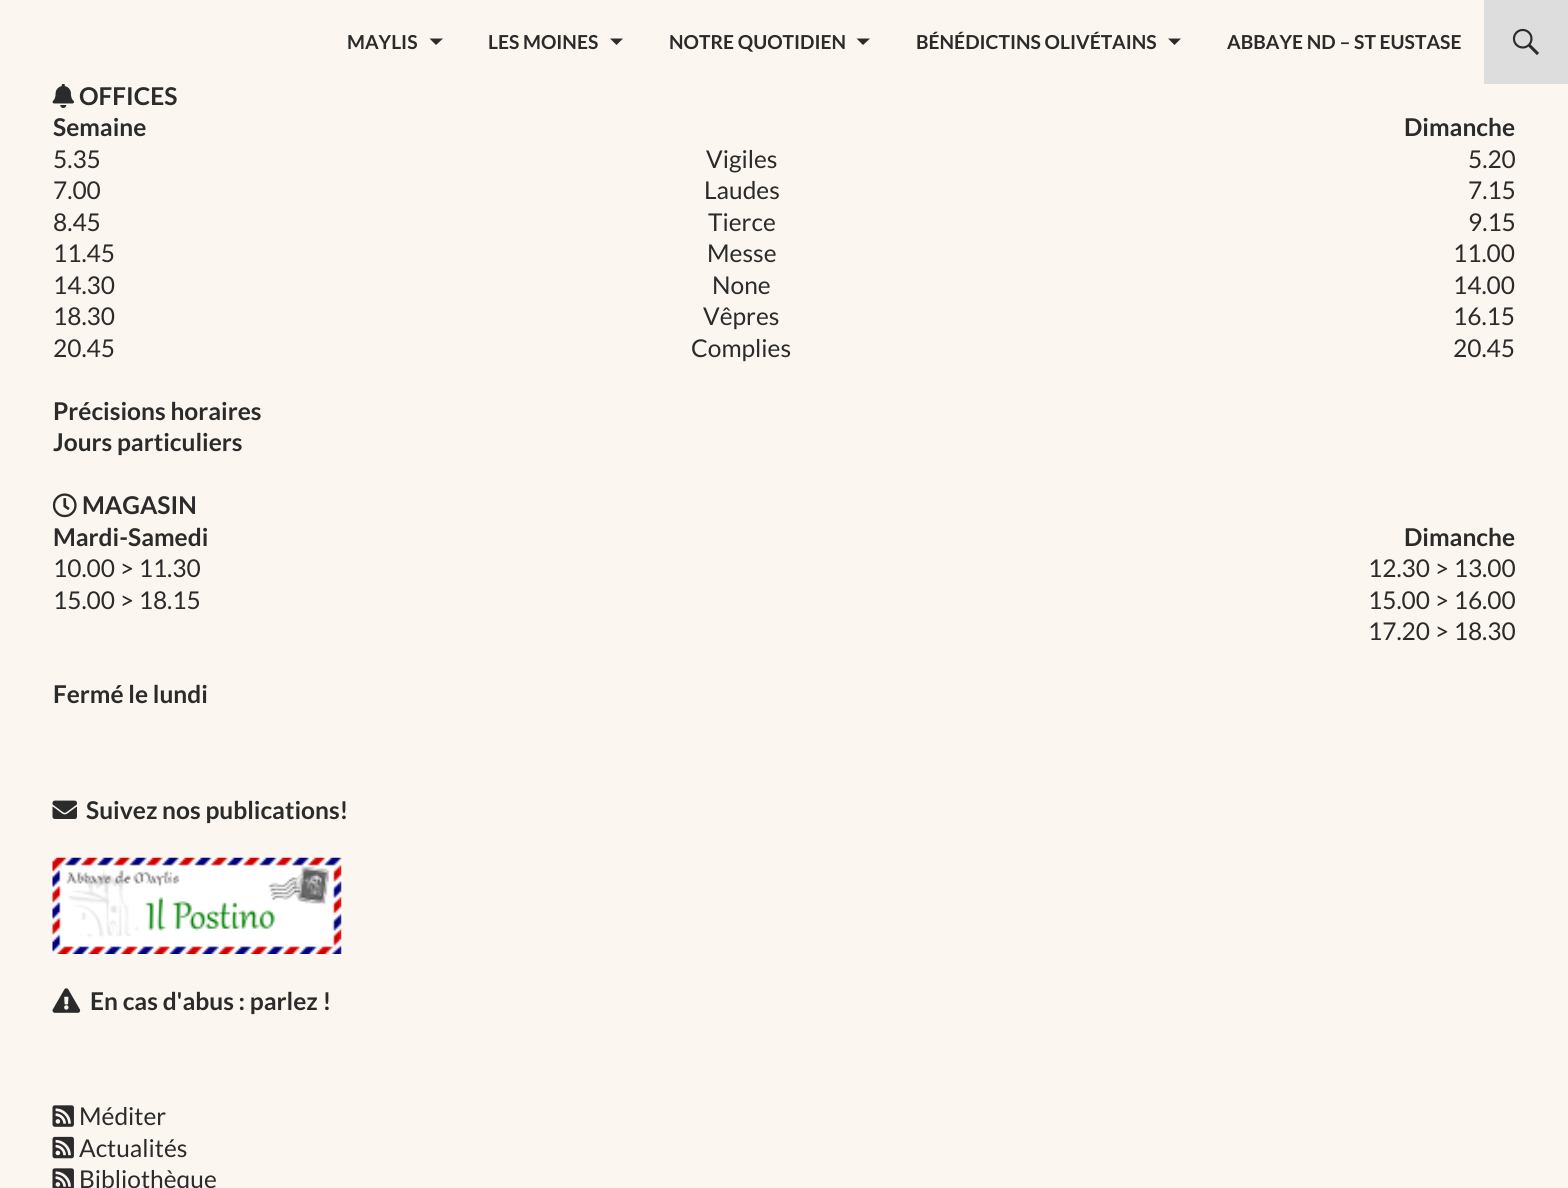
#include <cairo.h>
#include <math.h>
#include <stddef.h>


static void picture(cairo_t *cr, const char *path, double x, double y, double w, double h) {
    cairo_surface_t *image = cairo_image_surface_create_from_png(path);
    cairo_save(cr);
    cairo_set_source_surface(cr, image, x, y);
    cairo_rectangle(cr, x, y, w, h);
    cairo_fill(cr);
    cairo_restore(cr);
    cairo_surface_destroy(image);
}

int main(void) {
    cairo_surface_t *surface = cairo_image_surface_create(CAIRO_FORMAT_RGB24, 1568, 1188);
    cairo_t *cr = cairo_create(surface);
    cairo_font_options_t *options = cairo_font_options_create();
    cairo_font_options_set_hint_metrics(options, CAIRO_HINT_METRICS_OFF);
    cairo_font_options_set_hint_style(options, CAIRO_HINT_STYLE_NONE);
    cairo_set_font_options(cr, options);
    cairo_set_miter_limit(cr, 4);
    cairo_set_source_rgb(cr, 0.984, 0.961, 0.937);
    cairo_paint(cr);
    cairo_select_font_face(cr, "Lato", CAIRO_FONT_SLANT_NORMAL, CAIRO_FONT_WEIGHT_BOLD);
    cairo_set_font_size(cr, 19.25);
    cairo_set_source_rgb(cr, 0.169, 0.169, 0.169);
    cairo_move_to(cr, 347, 49);
    cairo_show_text(cr, "MAYLIS");
    cairo_new_path(cr);
    cairo_move_to(cr, 429.5, 38.5);
    cairo_line_to(cr, 436, 45);
    cairo_line_to(cr, 443, 38.5);
    cairo_close_path(cr);
    cairo_fill(cr);
    cairo_move_to(cr, 488, 49);
    cairo_show_text(cr, "LES MOINES");
    cairo_new_path(cr);
    cairo_move_to(cr, 610, 38.5);
    cairo_line_to(cr, 616.5, 45);
    cairo_line_to(cr, 623, 38.5);
    cairo_close_path(cr);
    cairo_fill(cr);
    cairo_move_to(cr, 669, 49);
    cairo_show_text(cr, "NOTRE QUOTIDIEN");
    cairo_new_path(cr);
    cairo_move_to(cr, 856.5, 38.5);
    cairo_line_to(cr, 863, 45);
    cairo_line_to(cr, 870, 38.5);
    cairo_close_path(cr);
    cairo_fill(cr);
    cairo_move_to(cr, 916, 49);
    cairo_show_text(cr, "BÉNÉDICTINS OLIVÉTAINS");
    cairo_new_path(cr);
    cairo_move_to(cr, 1168, 38.5);
    cairo_line_to(cr, 1174.5, 45);
    cairo_line_to(cr, 1181, 38.5);
    cairo_close_path(cr);
    cairo_fill(cr);
    cairo_move_to(cr, 1227, 49);
    cairo_show_text(cr, "ABBAYE ND – ST EUSTASE");
    cairo_set_source_rgb(cr, 0.867, 0.867, 0.867);
    cairo_rectangle(cr, 1484, 0, 84, 84);
    cairo_fill(cr);
    picture(cr, "img1.png", 1512, 28, 27, 27);
    picture(cr, "img2.png", 52, 84, 22, 24);
    cairo_set_font_size(cr, 24.5);
    cairo_set_source_rgb(cr, 0.169, 0.169, 0.169);
    cairo_move_to(cr, 79, 105);
    cairo_show_text(cr, "OFFICES");
    cairo_move_to(cr, 53, 136);
    cairo_show_text(cr, "Semaine");
    cairo_move_to(cr, 1404, 136);
    cairo_show_text(cr, "Dimanche");
    cairo_select_font_face(cr, "Lato", CAIRO_FONT_SLANT_NORMAL, CAIRO_FONT_WEIGHT_NORMAL);
    cairo_move_to(cr, 53, 168);
    cairo_show_text(cr, "5.35");
    cairo_move_to(cr, 706, 168);
    cairo_show_text(cr, "Vigiles");
    cairo_move_to(cr, 1468, 168);
    cairo_show_text(cr, "5.20");
    cairo_move_to(cr, 53, 199);
    cairo_show_text(cr, "7.00");
    cairo_move_to(cr, 704, 199);
    cairo_show_text(cr, "Laudes");
    cairo_move_to(cr, 1468, 199);
    cairo_show_text(cr, "7.15");
    cairo_move_to(cr, 53, 231);
    cairo_show_text(cr, "8.45");
    cairo_move_to(cr, 708, 231);
    cairo_show_text(cr, "Tierce");
    cairo_move_to(cr, 1468, 231);
    cairo_show_text(cr, "9.15");
    cairo_move_to(cr, 53, 262);
    cairo_show_text(cr, "11.45");
    cairo_move_to(cr, 707, 262);
    cairo_show_text(cr, "Messe");
    cairo_move_to(cr, 1453, 262);
    cairo_show_text(cr, "11.00");
    cairo_move_to(cr, 53, 294);
    cairo_show_text(cr, "14.30");
    cairo_move_to(cr, 712, 294);
    cairo_show_text(cr, "None");
    cairo_move_to(cr, 1453, 294);
    cairo_show_text(cr, "14.00");
    cairo_move_to(cr, 53, 325);
    cairo_show_text(cr, "18.30");
    cairo_move_to(cr, 703, 325);
    cairo_show_text(cr, "Vêpres");
    cairo_move_to(cr, 1453, 325);
    cairo_show_text(cr, "16.15");
    cairo_move_to(cr, 53, 357);
    cairo_show_text(cr, "20.45");
    cairo_move_to(cr, 691, 357);
    cairo_show_text(cr, "Complies");
    cairo_move_to(cr, 1453, 357);
    cairo_show_text(cr, "20.45");
    cairo_select_font_face(cr, "Lato", CAIRO_FONT_SLANT_NORMAL, CAIRO_FONT_WEIGHT_BOLD);
    cairo_move_to(cr, 53, 420);
    cairo_show_text(cr, "Précisions horaires");
    cairo_move_to(cr, 53, 451);
    cairo_show_text(cr, "Jours particuliers");
    picture(cr, "img3.png", 52, 493, 25, 25);
    cairo_move_to(cr, 82, 514);
    cairo_show_text(cr, "MAGASIN");
    cairo_move_to(cr, 53, 546);
    cairo_show_text(cr, "Mardi-Samedi");
    cairo_move_to(cr, 1404, 546);
    cairo_show_text(cr, "Dimanche");
    cairo_select_font_face(cr, "Lato", CAIRO_FONT_SLANT_NORMAL, CAIRO_FONT_WEIGHT_NORMAL);
    cairo_move_to(cr, 53, 577);
    cairo_show_text(cr, "10.00 > 11.30");
    cairo_move_to(cr, 1368, 577);
    cairo_show_text(cr, "12.30 > 13.00");
    cairo_move_to(cr, 53, 609);
    cairo_show_text(cr, "15.00 > 18.15");
    cairo_move_to(cr, 1368, 609);
    cairo_show_text(cr, "15.00 > 16.00");
    cairo_move_to(cr, 1368, 640);
    cairo_show_text(cr, "17.20 > 18.30");
    cairo_select_font_face(cr, "Lato", CAIRO_FONT_SLANT_NORMAL, CAIRO_FONT_WEIGHT_BOLD);
    cairo_move_to(cr, 53, 703);
    cairo_show_text(cr, "Fermé le lundi");
    picture(cr, "img4.png", 52, 800, 25, 19);
    cairo_move_to(cr, 86, 819);
    cairo_show_text(cr, "Suivez nos publications!");
    picture(cr, "img5.png", 52, 857, 290, 97);
    picture(cr, "img6.png", 52, 988, 29, 25);
    cairo_move_to(cr, 90, 1010);
    cairo_show_text(cr, "En cas d'abus : parlez !");
    picture(cr, "img7.png", 52, 1105, 22, 22);
    cairo_select_font_face(cr, "Lato", CAIRO_FONT_SLANT_NORMAL, CAIRO_FONT_WEIGHT_NORMAL);
    cairo_move_to(cr, 79, 1125);
    cairo_show_text(cr, "Méditer");
    picture(cr, "img8.png", 52, 1136, 22, 23);
    cairo_move_to(cr, 79, 1157);
    cairo_show_text(cr, "Actualités");
    picture(cr, "img9.png", 52, 1168, 22, 20);
    cairo_move_to(cr, 79, 1188);
    cairo_show_text(cr, "Bibliothèque");
    cairo_surface_write_to_png(surface, "page.png");
    cairo_font_options_destroy(options);
    cairo_destroy(cr);
    cairo_surface_destroy(surface);
    return 0;
}
